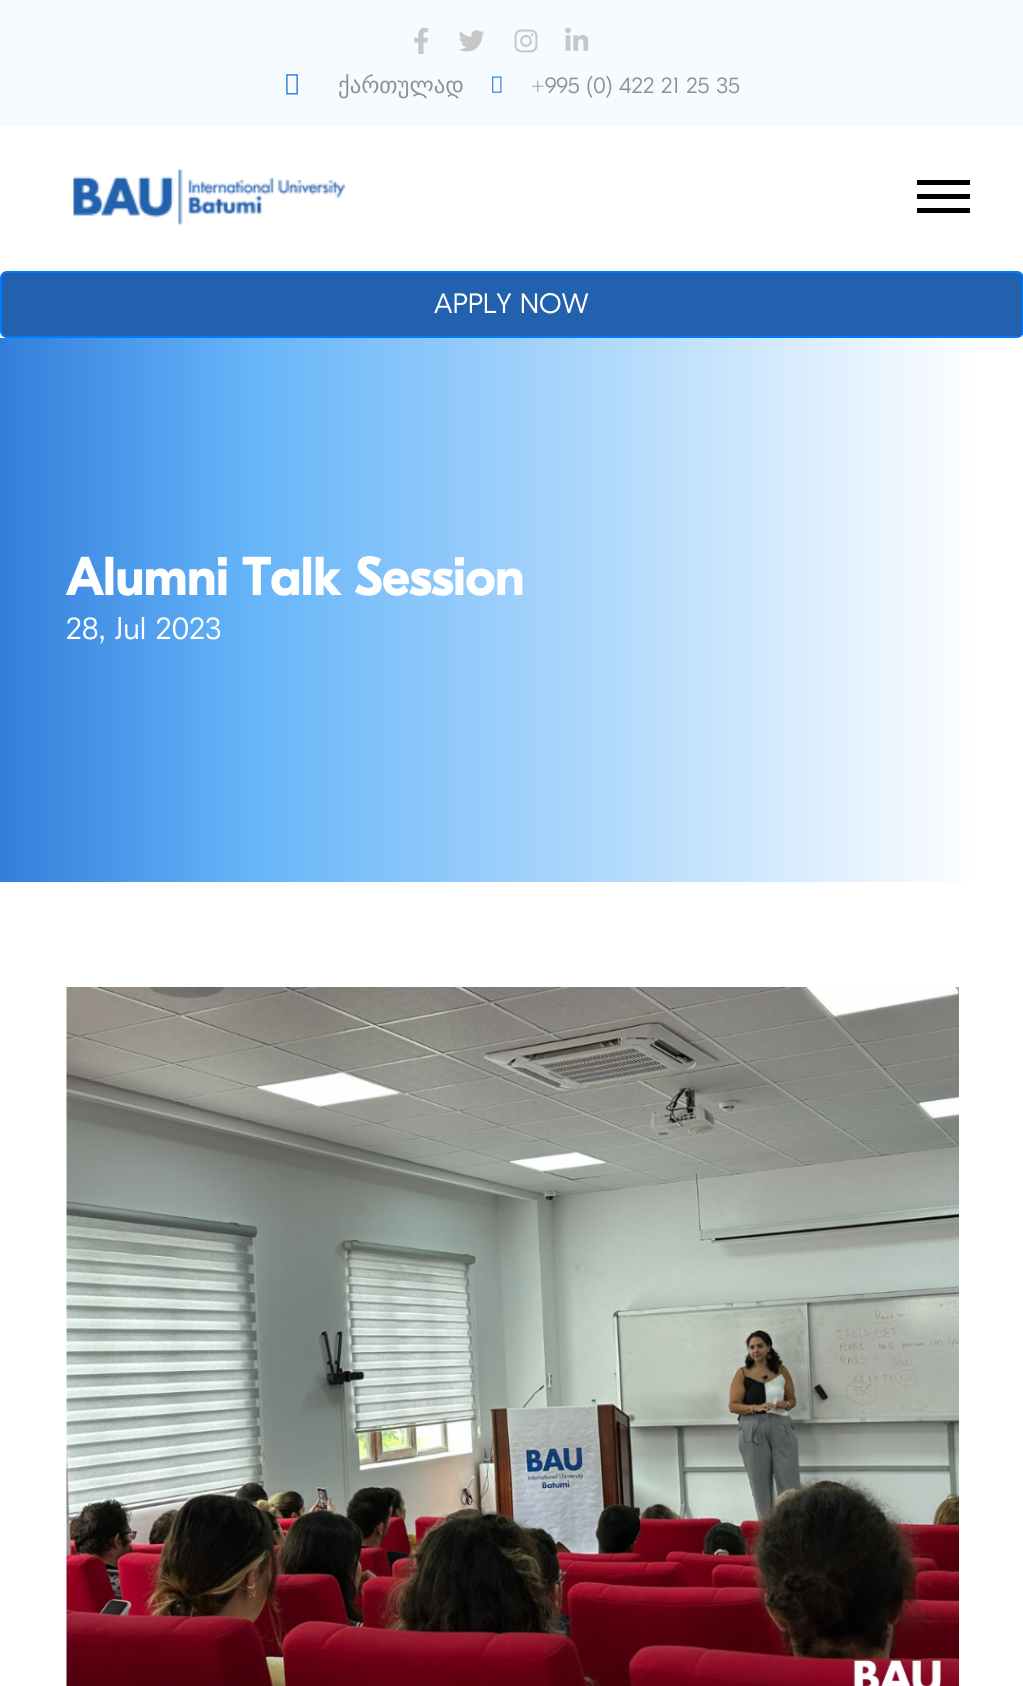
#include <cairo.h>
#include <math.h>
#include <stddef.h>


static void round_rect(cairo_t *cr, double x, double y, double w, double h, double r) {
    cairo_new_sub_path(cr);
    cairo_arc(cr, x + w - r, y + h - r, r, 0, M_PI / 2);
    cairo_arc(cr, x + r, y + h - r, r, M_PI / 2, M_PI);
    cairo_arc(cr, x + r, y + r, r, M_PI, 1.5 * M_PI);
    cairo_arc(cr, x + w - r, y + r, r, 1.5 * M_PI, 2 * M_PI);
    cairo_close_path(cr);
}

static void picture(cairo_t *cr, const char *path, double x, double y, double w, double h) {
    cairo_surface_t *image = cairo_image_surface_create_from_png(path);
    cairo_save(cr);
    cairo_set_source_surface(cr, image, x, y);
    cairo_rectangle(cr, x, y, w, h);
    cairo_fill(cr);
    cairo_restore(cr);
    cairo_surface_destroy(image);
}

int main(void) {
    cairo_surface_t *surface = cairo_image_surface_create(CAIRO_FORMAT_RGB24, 1023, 1686);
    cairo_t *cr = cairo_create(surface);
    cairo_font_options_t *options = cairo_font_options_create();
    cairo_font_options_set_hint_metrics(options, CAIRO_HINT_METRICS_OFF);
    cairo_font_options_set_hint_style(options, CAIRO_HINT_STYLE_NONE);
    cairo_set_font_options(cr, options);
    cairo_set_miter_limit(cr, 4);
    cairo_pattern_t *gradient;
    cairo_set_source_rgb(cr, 1, 1, 1);
    cairo_paint(cr);
    cairo_set_source_rgb(cr, 0.961, 0.984, 1);
    cairo_rectangle(cr, 0, 0, 1023, 126);
    cairo_fill(cr);
    picture(cr, "img1.png", 414, 27, 15, 27);
    picture(cr, "img2.png", 459, 30, 26, 22);
    picture(cr, "img3.png", 514, 29, 24, 24);
    picture(cr, "img4.png", 565, 27, 24, 24);
    picture(cr, "img5.png", 286, 74, 12, 21);
    cairo_select_font_face(cr, "DejaVu Sans", CAIRO_FONT_SLANT_NORMAL, CAIRO_FONT_WEIGHT_NORMAL);
    cairo_set_font_size(cr, 22.75);
    cairo_set_source_rgb(cr, 0.569, 0.569, 0.569);
    cairo_move_to(cr, 338, 93);
    cairo_show_text(cr, "ქართულად");
    picture(cr, "img6.png", 492, 76, 10, 17);
    cairo_select_font_face(cr, "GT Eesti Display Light", CAIRO_FONT_SLANT_NORMAL, CAIRO_FONT_WEIGHT_NORMAL);
    cairo_move_to(cr, 531, 93);
    cairo_show_text(cr, "+995 (0) 422 21 25 35");
    picture(cr, "img7.png", 73, 169, 273, 56);
    cairo_set_source_rgb(cr, 0, 0, 0);
    cairo_rectangle(cr, 917, 180, 53, 5);
    cairo_fill(cr);
    cairo_rectangle(cr, 917, 194, 53, 5);
    cairo_fill(cr);
    cairo_rectangle(cr, 917, 208, 53, 5);
    cairo_fill(cr);
    cairo_set_source_rgb(cr, 0.133, 0.38, 0.682);
    round_rect(cr, 1, 272, 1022, 65, 6);
    cairo_fill_preserve(cr);
    cairo_set_source_rgb(cr, 0, 0.482, 1);
    cairo_stroke(cr);
    cairo_set_font_size(cr, 28);
    cairo_set_source_rgb(cr, 1, 1, 1);
    cairo_move_to(cr, 434, 313);
    cairo_show_text(cr, "APPLY NOW");
    gradient = cairo_pattern_create_linear(0, 610, 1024, 610);
    cairo_pattern_add_color_stop_rgba(gradient, 0, 0.196, 0.494, 0.859, 1);
    cairo_pattern_add_color_stop_rgba(gradient, 0.24, 0.396, 0.706, 0.976, 1);
    cairo_pattern_add_color_stop_rgba(gradient, 0.96, 1, 1, 1, 1);
    cairo_pattern_add_color_stop_rgba(gradient, 1, 1, 1, 1, 1);
    cairo_set_source(cr, gradient);
    cairo_pattern_destroy(gradient);
    cairo_rectangle(cr, 0, 338, 971, 544);
    cairo_fill(cr);
    cairo_select_font_face(cr, "GT Eesti Display", CAIRO_FONT_SLANT_NORMAL, CAIRO_FONT_WEIGHT_BOLD);
    cairo_set_font_size(cr, 52.5);
    cairo_set_source_rgb(cr, 1, 1, 1);
    cairo_move_to(cr, 66, 595);
    cairo_show_text(cr, "Alumni Talk Session");
    cairo_select_font_face(cr, "GT Eesti Display Light", CAIRO_FONT_SLANT_NORMAL, CAIRO_FONT_WEIGHT_NORMAL);
    cairo_set_font_size(cr, 31.5);
    cairo_move_to(cr, 66, 639);
    cairo_show_text(cr, "28, Jul 2023");
    picture(cr, "img8.png", 66, 987, 893, 699);
    cairo_surface_write_to_png(surface, "page.png");
    cairo_font_options_destroy(options);
    cairo_destroy(cr);
    cairo_surface_destroy(surface);
    return 0;
}
